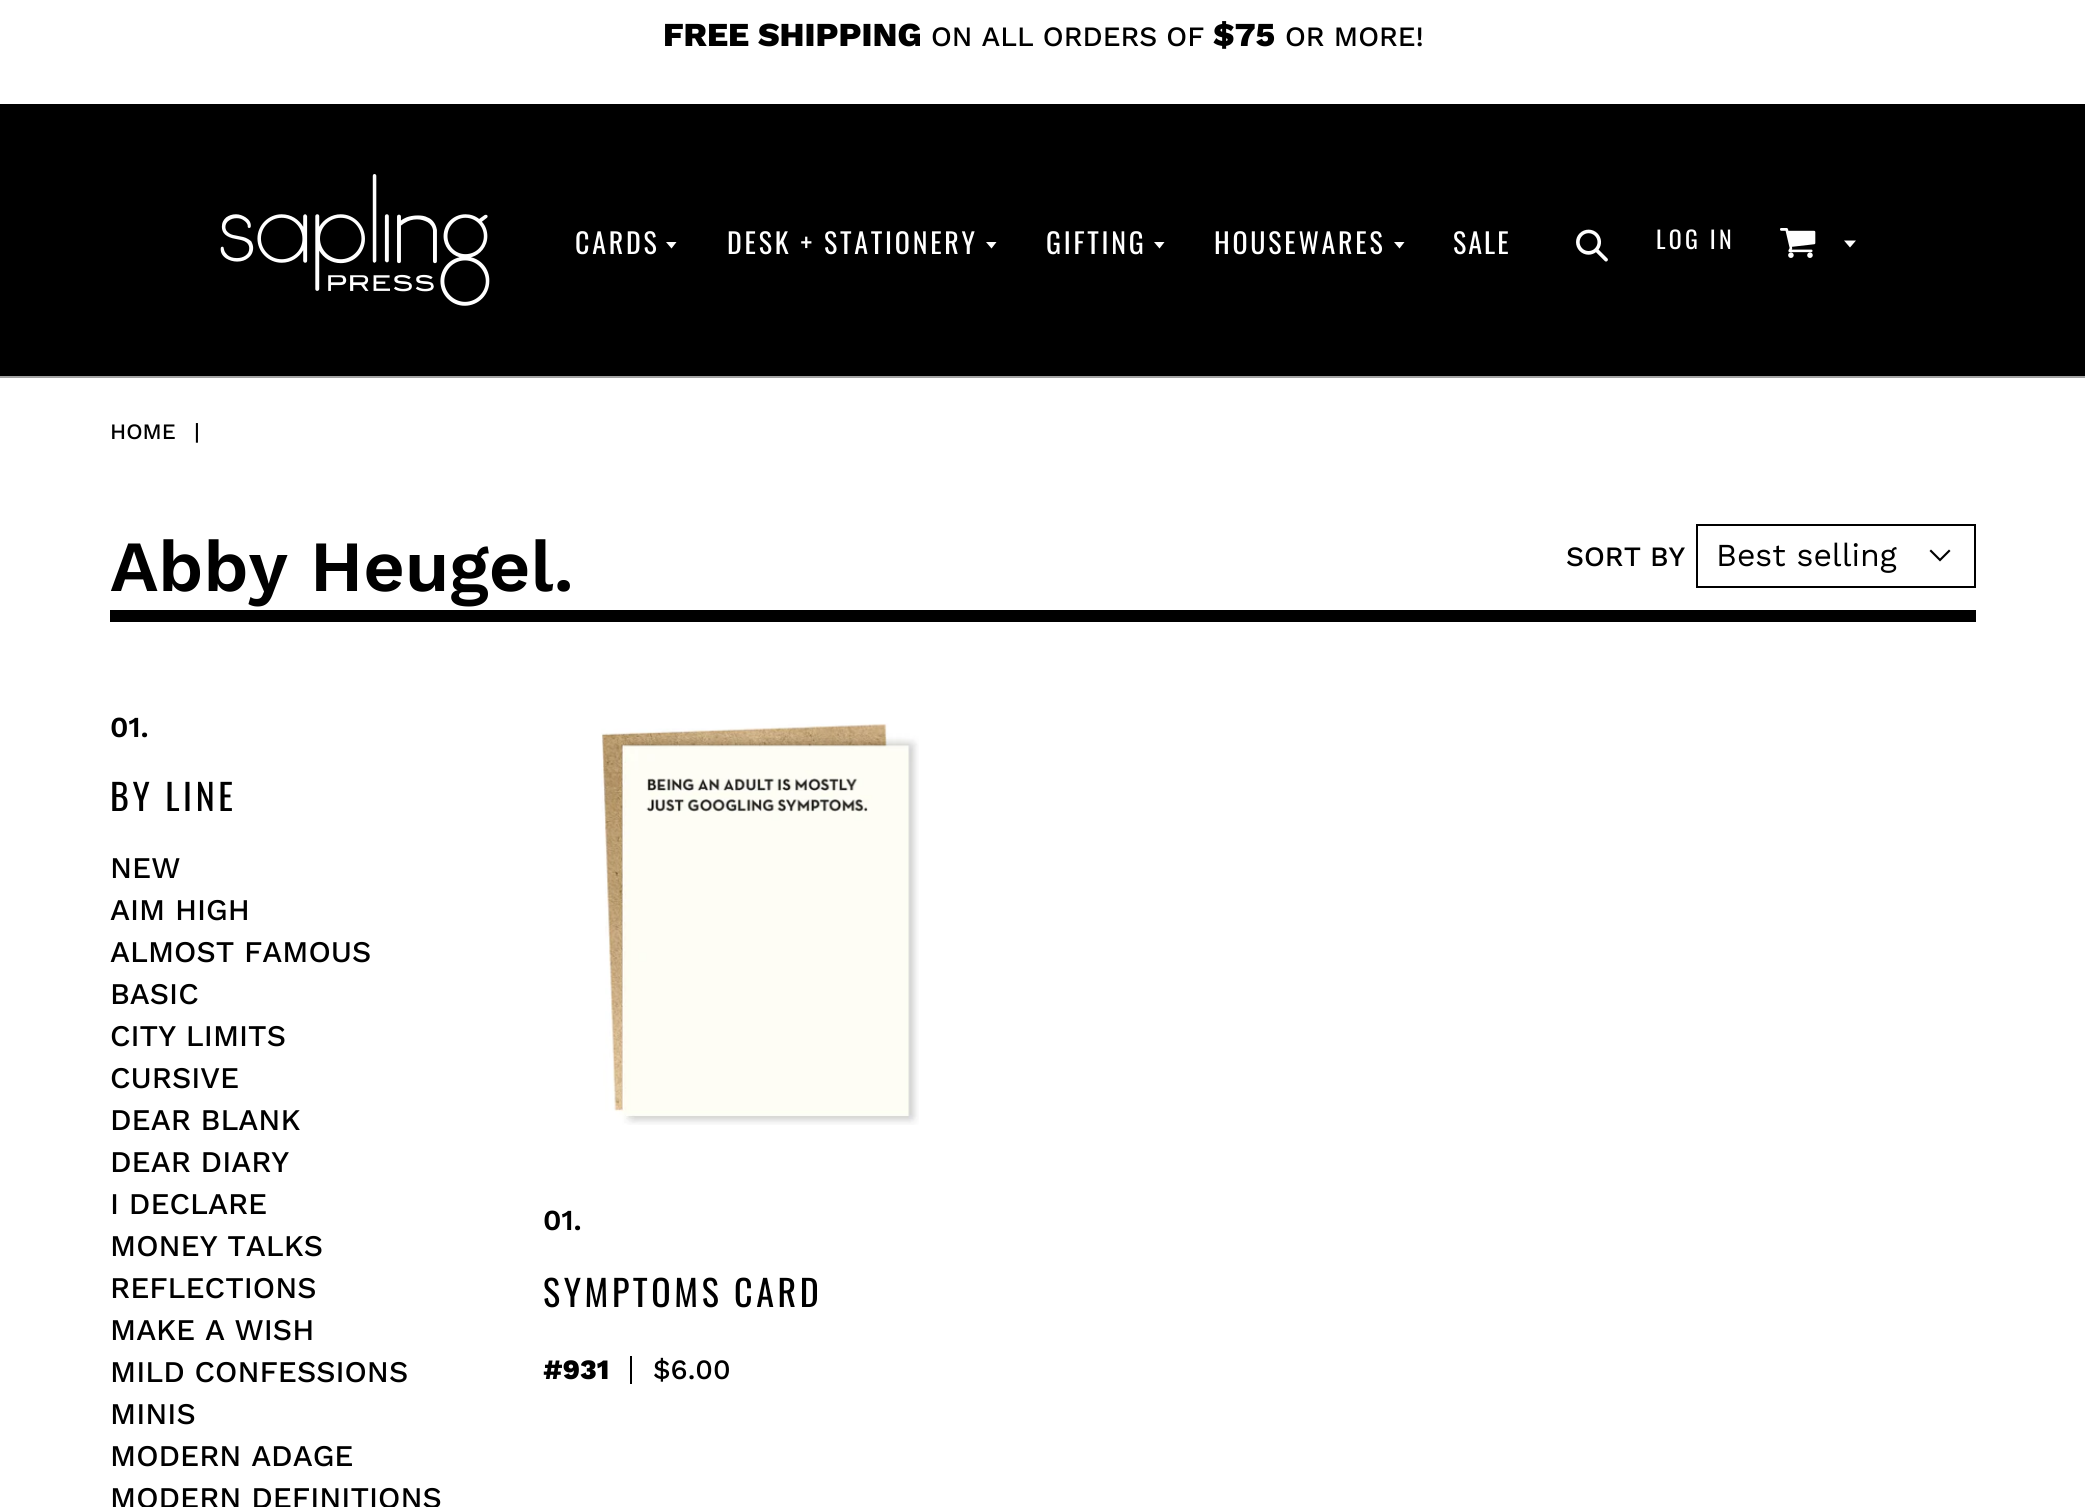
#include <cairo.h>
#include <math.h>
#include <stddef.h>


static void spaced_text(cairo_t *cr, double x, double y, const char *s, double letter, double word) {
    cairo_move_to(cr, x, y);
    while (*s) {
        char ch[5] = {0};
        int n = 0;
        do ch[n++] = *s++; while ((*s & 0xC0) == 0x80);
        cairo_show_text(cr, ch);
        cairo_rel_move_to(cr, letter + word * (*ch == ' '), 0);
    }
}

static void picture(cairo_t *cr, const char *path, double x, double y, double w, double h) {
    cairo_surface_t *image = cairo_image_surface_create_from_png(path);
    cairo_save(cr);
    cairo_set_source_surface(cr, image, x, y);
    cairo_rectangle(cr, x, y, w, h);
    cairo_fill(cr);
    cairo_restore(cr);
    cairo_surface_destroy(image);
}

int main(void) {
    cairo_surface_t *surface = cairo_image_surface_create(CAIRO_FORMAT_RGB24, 2085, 1507);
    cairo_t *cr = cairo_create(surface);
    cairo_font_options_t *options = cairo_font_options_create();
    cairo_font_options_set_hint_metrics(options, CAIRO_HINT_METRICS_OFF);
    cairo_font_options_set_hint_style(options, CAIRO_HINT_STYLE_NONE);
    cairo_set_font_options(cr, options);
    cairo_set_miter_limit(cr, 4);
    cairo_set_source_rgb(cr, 1, 1, 1);
    cairo_paint(cr);
    cairo_select_font_face(cr, "Work Sans ExtraBold", CAIRO_FONT_SLANT_NORMAL, CAIRO_FONT_WEIGHT_NORMAL);
    cairo_set_font_size(cr, 33.5);
    cairo_set_source_rgb(cr, 0, 0, 0);
    cairo_move_to(cr, 663, 46);
    cairo_show_text(cr, "FREE SHIPPING");
    cairo_select_font_face(cr, "Work Sans Medium", CAIRO_FONT_SLANT_NORMAL, CAIRO_FONT_WEIGHT_NORMAL);
    cairo_set_font_size(cr, 28);
    cairo_move_to(cr, 931, 46);
    cairo_show_text(cr, "ON ALL ORDERS OF");
    cairo_select_font_face(cr, "Work Sans ExtraBold", CAIRO_FONT_SLANT_NORMAL, CAIRO_FONT_WEIGHT_NORMAL);
    cairo_set_font_size(cr, 33.5);
    cairo_move_to(cr, 1213, 46);
    cairo_show_text(cr, "$75");
    cairo_select_font_face(cr, "Work Sans Medium", CAIRO_FONT_SLANT_NORMAL, CAIRO_FONT_WEIGHT_NORMAL);
    cairo_set_font_size(cr, 28);
    cairo_move_to(cr, 1285, 46);
    cairo_show_text(cr, "OR MORE!");
    cairo_rectangle(cr, 0, 104, 2085, 272);
    cairo_fill(cr);
    cairo_set_source_rgb(cr, 0.639, 0.639, 0.639);
    cairo_rectangle(cr, 0, 376, 2085, 2);
    cairo_fill(cr);
    picture(cr, "img1.png", 220, 174, 270, 132);
    cairo_select_font_face(cr, "Oswald", CAIRO_FONT_SLANT_NORMAL, CAIRO_FONT_WEIGHT_NORMAL);
    cairo_set_source_rgb(cr, 1, 1, 1);
    spaced_text(cr, 575, 254, "CARDS", 2.75, 0);
    cairo_new_path(cr);
    cairo_move_to(cr, 671.5, 248.5);
    cairo_line_to(cr, 666, 242);
    cairo_line_to(cr, 676.5, 242);
    cairo_fill(cr);
    spaced_text(cr, 727, 254, "DESK + STATIONERY", 2.75, 0);
    cairo_new_path(cr);
    cairo_move_to(cr, 991.5, 248.5);
    cairo_line_to(cr, 986, 242);
    cairo_line_to(cr, 996.5, 242);
    cairo_fill(cr);
    spaced_text(cr, 1046, 254, "GIFTING", 2.75, 0);
    cairo_new_path(cr);
    cairo_move_to(cr, 1159.5, 248.5);
    cairo_line_to(cr, 1154, 242);
    cairo_line_to(cr, 1164.5, 242);
    cairo_fill(cr);
    spaced_text(cr, 1214, 254, "HOUSEWARES", 2.75, 0);
    cairo_new_path(cr);
    cairo_move_to(cr, 1399.5, 248.5);
    cairo_line_to(cr, 1394, 242);
    cairo_line_to(cr, 1404.5, 242);
    cairo_fill(cr);
    spaced_text(cr, 1453, 254, "SALE", 2, 0);
    picture(cr, "img2.png", 1576, 229, 32, 33);
    cairo_set_font_size(cr, 24);
    spaced_text(cr, 1656, 249, "LOG IN", 3.25, 0);
    picture(cr, "img3.png", 1780, 228, 36, 30);
    cairo_new_path(cr);
    cairo_move_to(cr, 1850, 247.5);
    cairo_line_to(cr, 1844, 240.5);
    cairo_line_to(cr, 1856, 240.5);
    cairo_fill(cr);
    cairo_select_font_face(cr, "Work Sans Medium", CAIRO_FONT_SLANT_NORMAL, CAIRO_FONT_WEIGHT_NORMAL);
    cairo_set_font_size(cr, 22);
    cairo_set_source_rgb(cr, 0, 0, 0);
    cairo_move_to(cr, 110, 439);
    cairo_show_text(cr, "HOME");
    cairo_move_to(cr, 194, 439);
    cairo_show_text(cr, "|");
    cairo_rectangle(cr, 110, 610, 1866, 12);
    cairo_fill(cr);
    cairo_select_font_face(cr, "Work Sans SemiBold", CAIRO_FONT_SLANT_NORMAL, CAIRO_FONT_WEIGHT_NORMAL);
    cairo_set_font_size(cr, 72);
    cairo_move_to(cr, 110, 591);
    cairo_show_text(cr, "Abby Heugel.");
    cairo_select_font_face(cr, "Work Sans Medium", CAIRO_FONT_SLANT_NORMAL, CAIRO_FONT_WEIGHT_NORMAL);
    cairo_set_font_size(cr, 28);
    cairo_move_to(cr, 1566, 566);
    cairo_show_text(cr, "SORT BY");
    cairo_rectangle(cr, 1697, 525, 278, 62);
    cairo_stroke(cr);
    cairo_new_path(cr);
    cairo_move_to(cr, 1940, 561.5);
    cairo_line_to(cr, 1929.5, 551);
    cairo_line_to(cr, 1931, 549.5);
    cairo_line_to(cr, 1940, 558.5);
    cairo_line_to(cr, 1949, 549.5);
    cairo_line_to(cr, 1950.5, 551);
    cairo_close_path(cr);
    cairo_fill(cr);
    cairo_select_font_face(cr, "Work Sans", CAIRO_FONT_SLANT_NORMAL, CAIRO_FONT_WEIGHT_NORMAL);
    cairo_set_font_size(cr, 32);
    cairo_move_to(cr, 1716, 566);
    cairo_show_text(cr, "Best selling");
    cairo_select_font_face(cr, "Work Sans SemiBold", CAIRO_FONT_SLANT_NORMAL, CAIRO_FONT_WEIGHT_NORMAL);
    cairo_set_font_size(cr, 29);
    cairo_move_to(cr, 110, 737);
    cairo_show_text(cr, "01.");
    cairo_select_font_face(cr, "Oswald", CAIRO_FONT_SLANT_NORMAL, CAIRO_FONT_WEIGHT_NORMAL);
    cairo_set_font_size(cr, 36);
    spaced_text(cr, 110, 811, "BY LINE", 3.6, 0);
    cairo_select_font_face(cr, "Work Sans Medium", CAIRO_FONT_SLANT_NORMAL, CAIRO_FONT_WEIGHT_NORMAL);
    cairo_set_font_size(cr, 30);
    cairo_move_to(cr, 110, 878);
    cairo_show_text(cr, "NEW");
    cairo_move_to(cr, 110, 920);
    cairo_show_text(cr, "AIM HIGH");
    cairo_move_to(cr, 110, 962);
    cairo_show_text(cr, "ALMOST FAMOUS");
    cairo_move_to(cr, 110, 1004);
    cairo_show_text(cr, "BASIC");
    cairo_move_to(cr, 110, 1046);
    cairo_show_text(cr, "CITY LIMITS");
    cairo_move_to(cr, 110, 1088);
    cairo_show_text(cr, "CURSIVE");
    cairo_move_to(cr, 110, 1130);
    cairo_show_text(cr, "DEAR BLANK");
    cairo_move_to(cr, 110, 1172);
    cairo_show_text(cr, "DEAR DIARY");
    cairo_move_to(cr, 110, 1214);
    cairo_show_text(cr, "I DECLARE");
    cairo_move_to(cr, 110, 1256);
    cairo_show_text(cr, "MONEY TALKS");
    cairo_move_to(cr, 110, 1298);
    cairo_show_text(cr, "REFLECTIONS");
    cairo_move_to(cr, 110, 1340);
    cairo_show_text(cr, "MAKE A WISH");
    cairo_move_to(cr, 110, 1382);
    cairo_show_text(cr, "MILD CONFESSIONS");
    cairo_move_to(cr, 110, 1424);
    cairo_show_text(cr, "MINIS");
    cairo_move_to(cr, 110, 1466);
    cairo_show_text(cr, "MODERN ADAGE");
    cairo_move_to(cr, 110, 1508);
    cairo_show_text(cr, "MODERN DEFINITIONS");
    picture(cr, "img4.png", 601, 723, 318, 402);
    cairo_select_font_face(cr, "Work Sans SemiBold", CAIRO_FONT_SLANT_NORMAL, CAIRO_FONT_WEIGHT_NORMAL);
    cairo_set_font_size(cr, 29);
    cairo_move_to(cr, 543, 1230);
    cairo_show_text(cr, "01.");
    cairo_select_font_face(cr, "Oswald", CAIRO_FONT_SLANT_NORMAL, CAIRO_FONT_WEIGHT_NORMAL);
    cairo_set_font_size(cr, 36);
    spaced_text(cr, 543, 1307, "SYMPTOMS CARD", 3.6, 0);
    cairo_rectangle(cr, 630, 1356, 2, 28);
    cairo_fill(cr);
    cairo_select_font_face(cr, "Work Sans ExtraBold", CAIRO_FONT_SLANT_NORMAL, CAIRO_FONT_WEIGHT_NORMAL);
    cairo_set_font_size(cr, 28);
    cairo_move_to(cr, 543, 1379);
    cairo_show_text(cr, "#931");
    cairo_select_font_face(cr, "Work Sans Medium", CAIRO_FONT_SLANT_NORMAL, CAIRO_FONT_WEIGHT_NORMAL);
    cairo_move_to(cr, 653, 1379);
    cairo_show_text(cr, "$6.00");
    cairo_surface_write_to_png(surface, "page.png");
    cairo_font_options_destroy(options);
    cairo_destroy(cr);
    cairo_surface_destroy(surface);
    return 0;
}
